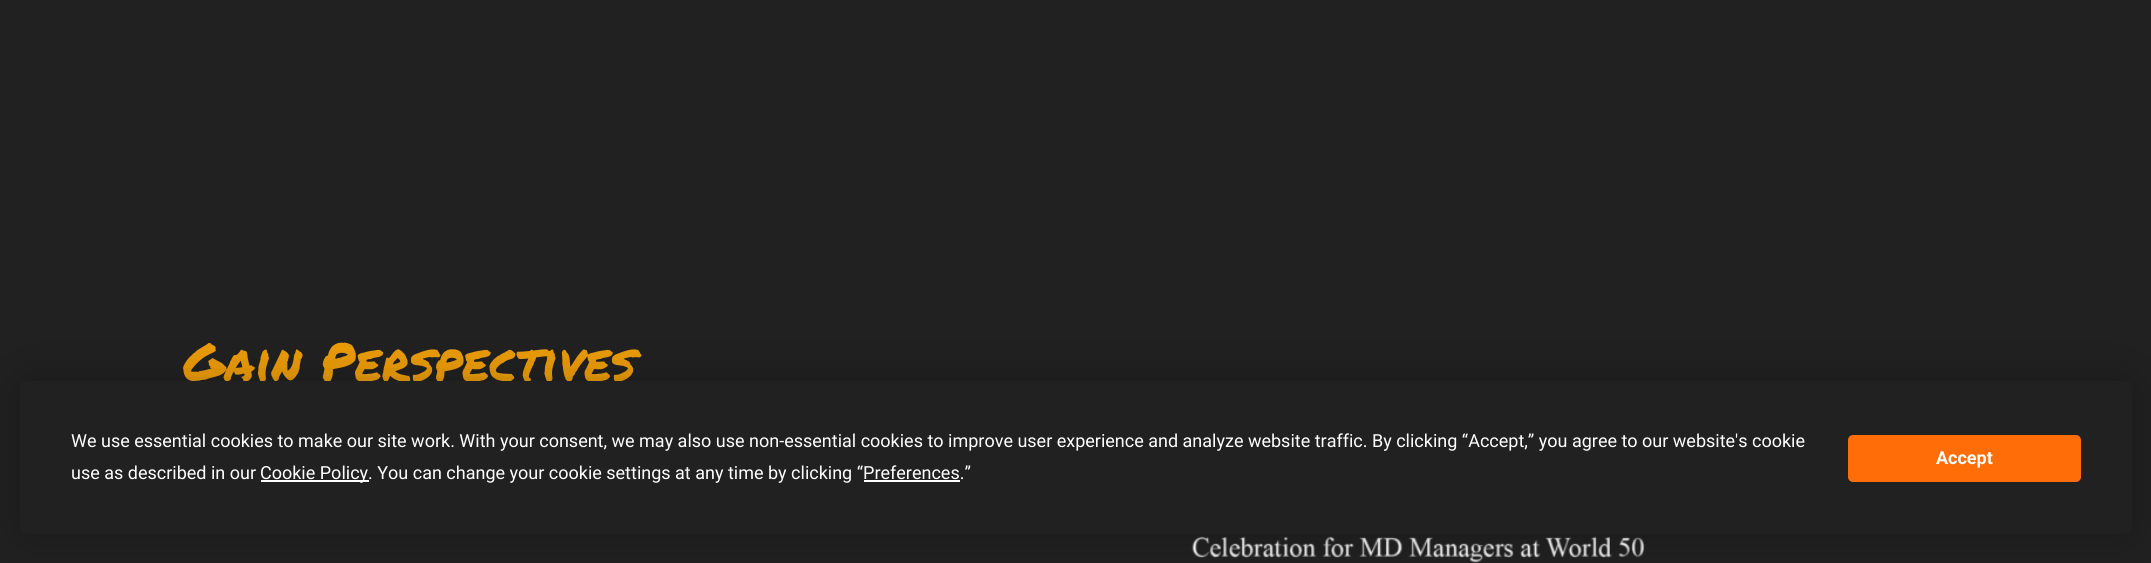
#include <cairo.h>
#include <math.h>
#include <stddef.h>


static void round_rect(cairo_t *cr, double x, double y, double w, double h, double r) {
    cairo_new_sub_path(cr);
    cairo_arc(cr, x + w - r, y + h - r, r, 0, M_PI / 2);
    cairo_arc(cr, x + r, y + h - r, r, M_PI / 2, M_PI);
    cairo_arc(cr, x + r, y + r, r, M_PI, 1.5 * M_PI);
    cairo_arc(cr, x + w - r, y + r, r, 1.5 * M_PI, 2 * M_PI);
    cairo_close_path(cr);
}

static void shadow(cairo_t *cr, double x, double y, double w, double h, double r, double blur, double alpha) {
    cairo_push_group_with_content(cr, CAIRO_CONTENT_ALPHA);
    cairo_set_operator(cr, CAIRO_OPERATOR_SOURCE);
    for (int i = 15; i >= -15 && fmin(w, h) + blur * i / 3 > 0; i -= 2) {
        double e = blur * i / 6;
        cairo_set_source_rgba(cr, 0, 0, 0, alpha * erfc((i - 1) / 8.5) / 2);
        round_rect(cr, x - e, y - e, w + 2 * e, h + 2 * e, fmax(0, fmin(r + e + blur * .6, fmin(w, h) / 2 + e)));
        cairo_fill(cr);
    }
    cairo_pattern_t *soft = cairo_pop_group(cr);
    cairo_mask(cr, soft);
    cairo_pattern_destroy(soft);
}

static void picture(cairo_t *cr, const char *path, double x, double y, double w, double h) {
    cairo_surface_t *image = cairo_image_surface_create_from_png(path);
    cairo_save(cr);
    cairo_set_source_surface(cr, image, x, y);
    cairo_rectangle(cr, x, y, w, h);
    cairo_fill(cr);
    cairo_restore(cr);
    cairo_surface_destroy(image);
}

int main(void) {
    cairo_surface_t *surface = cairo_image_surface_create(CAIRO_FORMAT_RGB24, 2151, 563);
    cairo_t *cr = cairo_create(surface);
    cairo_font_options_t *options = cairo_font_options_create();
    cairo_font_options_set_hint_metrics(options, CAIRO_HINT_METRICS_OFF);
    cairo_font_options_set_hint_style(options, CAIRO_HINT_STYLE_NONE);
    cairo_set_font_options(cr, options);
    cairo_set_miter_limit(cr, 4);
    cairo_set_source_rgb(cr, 0.129, 0.129, 0.129);
    cairo_paint(cr);
    cairo_select_font_face(cr, "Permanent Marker", CAIRO_FONT_SLANT_NORMAL, CAIRO_FONT_WEIGHT_NORMAL);
    cairo_set_font_size(cr, 52.5);
    cairo_set_source_rgb(cr, 0.933, 0.62, 0.031);
    cairo_move_to(cr, 183, 381);
    cairo_show_text(cr, "Gain Perspectives");
    picture(cr, "img1.png", 1191, 536, 454, 27);
    cairo_set_source_rgb(cr, 0, 0, 0);
    shadow(cr, 20, 381, 2112, 153, 8, 26, 0.25);
    cairo_set_source_rgb(cr, 0.129, 0.129, 0.129);
    round_rect(cr, 20, 381, 2112, 153, 8);
    cairo_fill(cr);
    cairo_select_font_face(cr, "Roboto", CAIRO_FONT_SLANT_NORMAL, CAIRO_FONT_WEIGHT_NORMAL);
    cairo_set_font_size(cr, 18);
    cairo_set_source_rgb(cr, 1, 1, 1);
    cairo_move_to(cr, 71, 447);
    cairo_show_text(cr, "We use essential cookies to make our site work. With your consent, we may also use non-essential cookies to improve user experience and analyze website traffic. By clicking “Accept,” you agree to our website's cookie");
    cairo_move_to(cr, 71, 479);
    cairo_show_text(cr, "use as described in our");
    cairo_rectangle(cr, 261, 480, 108, 2);
    cairo_fill(cr);
    cairo_move_to(cr, 260, 479);
    cairo_show_text(cr, "Cookie Policy. You can change your cookie settings at any time by clicking “Preferences.”");
    cairo_rectangle(cr, 864, 480, 96, 2);
    cairo_fill(cr);
    cairo_set_source_rgb(cr, 1, 0.427, 0.039);
    round_rect(cr, 1849, 436, 231, 45, 4);
    cairo_fill_preserve(cr);
    cairo_stroke(cr);
    cairo_select_font_face(cr, "Roboto", CAIRO_FONT_SLANT_NORMAL, CAIRO_FONT_WEIGHT_BOLD);
    cairo_set_source_rgb(cr, 1, 1, 1);
    cairo_move_to(cr, 1936, 464);
    cairo_show_text(cr, "Accept");
    cairo_surface_write_to_png(surface, "page.png");
    cairo_font_options_destroy(options);
    cairo_destroy(cr);
    cairo_surface_destroy(surface);
    return 0;
}
